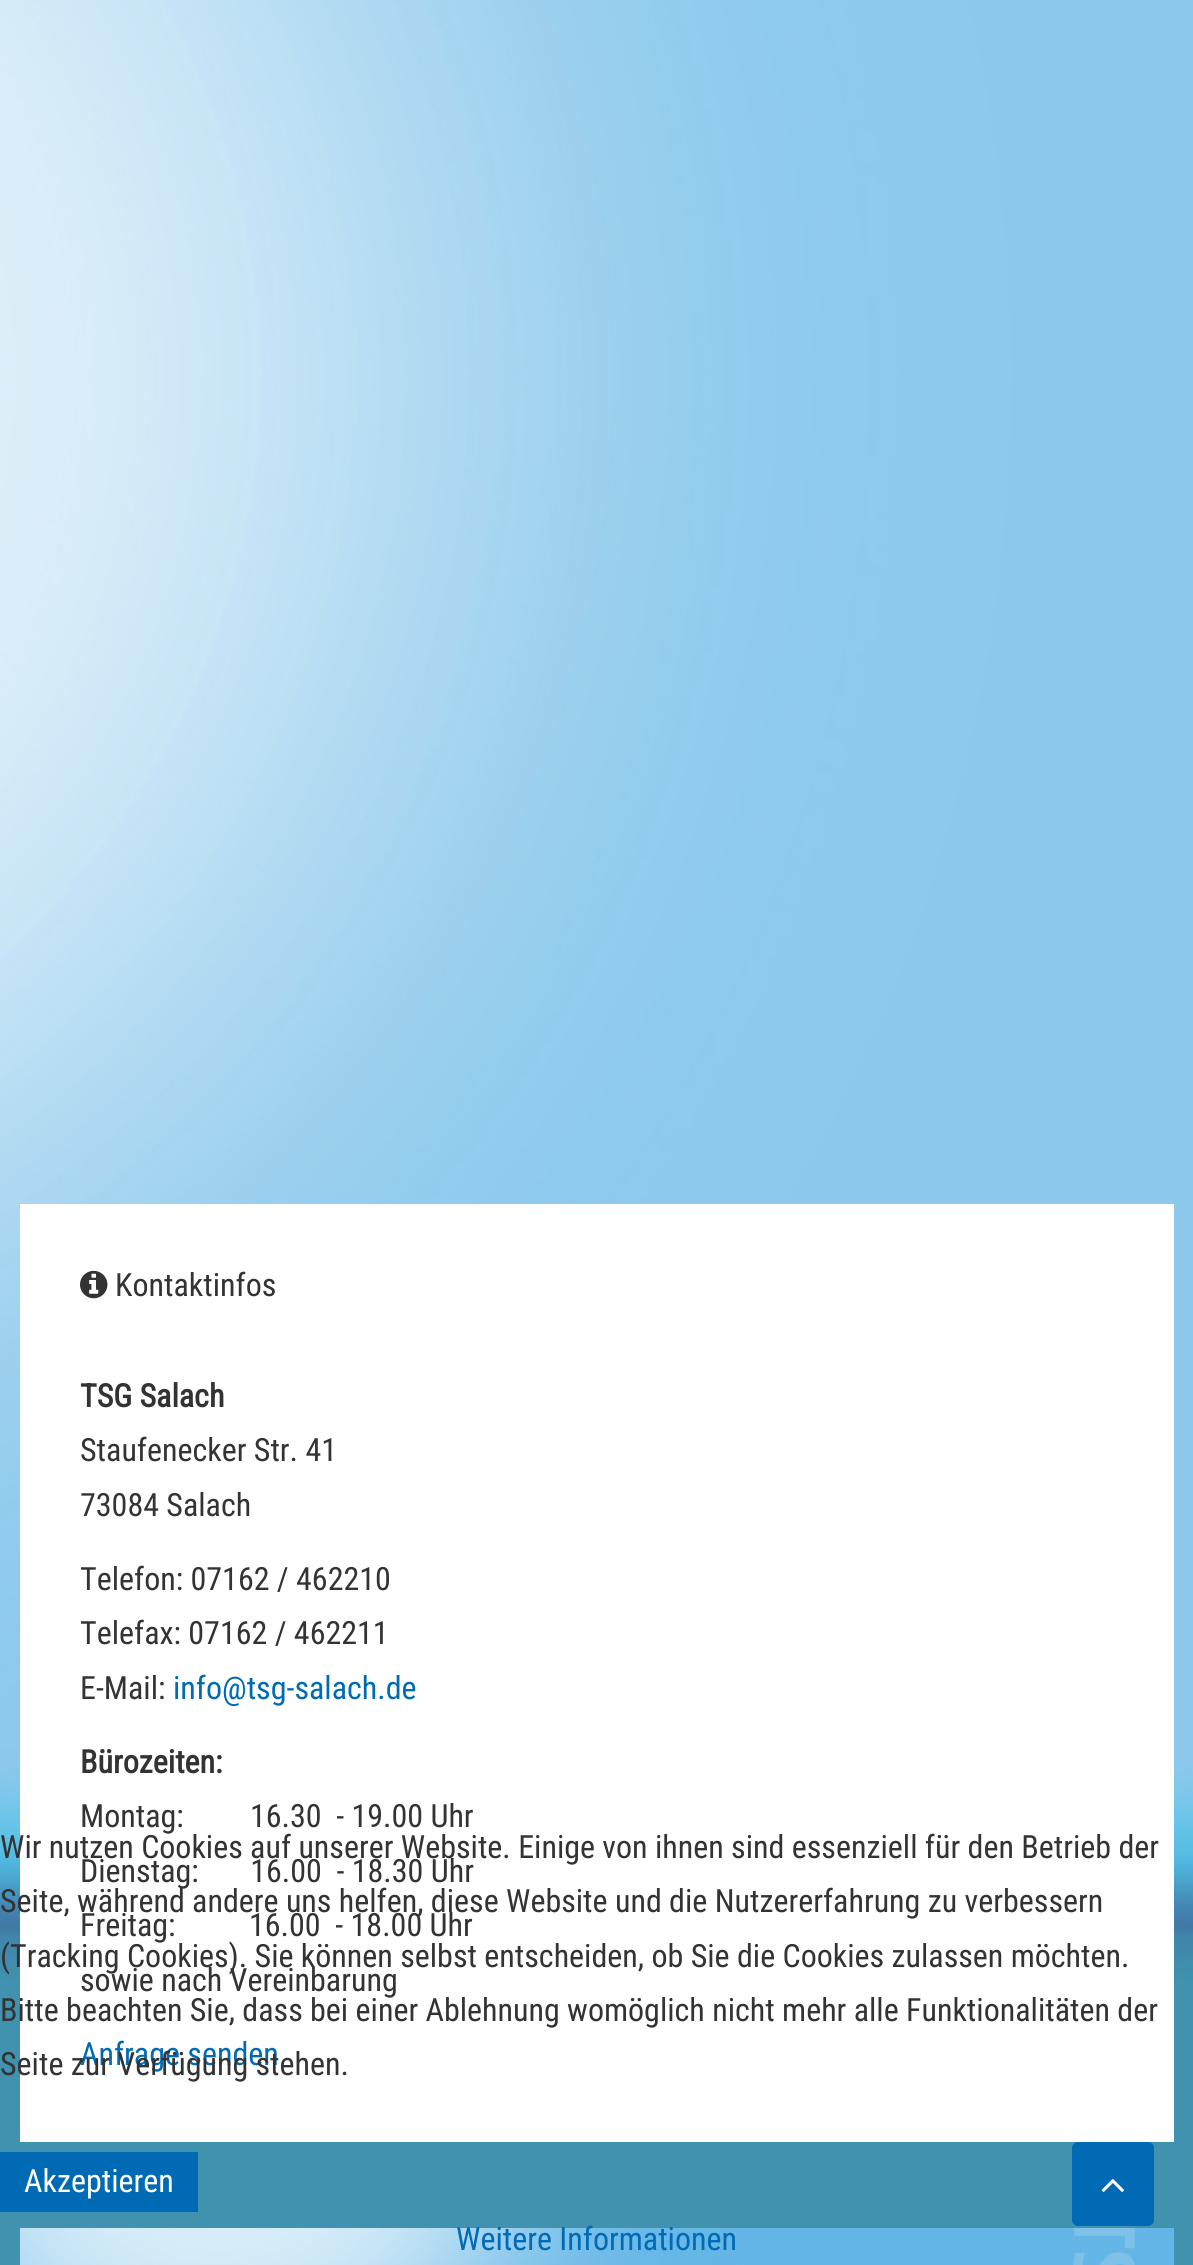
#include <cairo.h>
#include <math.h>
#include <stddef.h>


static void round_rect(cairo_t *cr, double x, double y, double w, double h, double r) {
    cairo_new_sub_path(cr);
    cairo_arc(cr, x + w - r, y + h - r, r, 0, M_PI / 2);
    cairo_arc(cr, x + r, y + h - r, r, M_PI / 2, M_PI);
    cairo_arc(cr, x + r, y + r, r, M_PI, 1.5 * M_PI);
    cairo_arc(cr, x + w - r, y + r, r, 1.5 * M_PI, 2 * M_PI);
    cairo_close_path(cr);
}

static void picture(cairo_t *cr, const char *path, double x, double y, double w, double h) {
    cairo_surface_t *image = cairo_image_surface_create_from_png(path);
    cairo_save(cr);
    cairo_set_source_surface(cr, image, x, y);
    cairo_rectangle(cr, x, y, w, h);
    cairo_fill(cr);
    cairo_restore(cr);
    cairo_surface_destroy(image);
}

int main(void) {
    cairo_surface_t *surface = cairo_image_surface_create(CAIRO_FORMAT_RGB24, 1193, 2265);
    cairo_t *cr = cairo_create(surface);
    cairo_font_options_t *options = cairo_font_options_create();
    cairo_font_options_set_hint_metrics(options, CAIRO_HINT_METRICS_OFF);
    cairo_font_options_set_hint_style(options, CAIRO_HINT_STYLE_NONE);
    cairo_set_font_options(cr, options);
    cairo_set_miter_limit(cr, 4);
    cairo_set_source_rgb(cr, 1, 1, 1);
    cairo_paint(cr);
    picture(cr, "img1.png", 0, 0, 1193, 2265);
    cairo_set_source_rgb(cr, 1, 1, 1);
    cairo_rectangle(cr, 20, 1204, 1154, 938);
    cairo_fill(cr);
    picture(cr, "img2.png", 80, 1270, 28, 29);
    cairo_select_font_face(cr, "Roboto Condensed", CAIRO_FONT_SLANT_NORMAL, CAIRO_FONT_WEIGHT_NORMAL);
    cairo_set_font_size(cr, 32);
    cairo_set_source_rgb(cr, 0.2, 0.2, 0.2);
    cairo_move_to(cr, 115, 1296);
    cairo_show_text(cr, "Kontaktinfos");
    cairo_select_font_face(cr, "Roboto Condensed", CAIRO_FONT_SLANT_NORMAL, CAIRO_FONT_WEIGHT_BOLD);
    cairo_move_to(cr, 80, 1407);
    cairo_show_text(cr, "TSG Salach");
    cairo_select_font_face(cr, "Roboto Condensed", CAIRO_FONT_SLANT_NORMAL, CAIRO_FONT_WEIGHT_NORMAL);
    cairo_move_to(cr, 80, 1461);
    cairo_show_text(cr, "Staufenecker Str. 41");
    cairo_move_to(cr, 80, 1516);
    cairo_show_text(cr, "73084 Salach");
    cairo_move_to(cr, 80, 1590);
    cairo_show_text(cr, "Telefon: 07162 / 462210");
    cairo_move_to(cr, 80, 1644);
    cairo_show_text(cr, "Telefax: 07162 / 462211");
    cairo_move_to(cr, 80, 1699);
    cairo_show_text(cr, "E-Mail:");
    cairo_set_source_rgb(cr, 0, 0.42, 0.706);
    cairo_move_to(cr, 173, 1699);
    cairo_show_text(cr, "info@tsg-salach.de");
    cairo_select_font_face(cr, "Roboto Condensed", CAIRO_FONT_SLANT_NORMAL, CAIRO_FONT_WEIGHT_BOLD);
    cairo_set_source_rgb(cr, 0.2, 0.2, 0.2);
    cairo_move_to(cr, 80, 1773);
    cairo_show_text(cr, "Bürozeiten:");
    cairo_select_font_face(cr, "Roboto Condensed", CAIRO_FONT_SLANT_NORMAL, CAIRO_FONT_WEIGHT_NORMAL);
    cairo_move_to(cr, 80, 1827);
    cairo_show_text(cr, "Montag:         16.30  - 19.00 Uhr");
    cairo_move_to(cr, 80, 1882);
    cairo_show_text(cr, "Dienstag:       16.00  - 18.30 Uhr");
    cairo_move_to(cr, 80, 1936);
    cairo_show_text(cr, "Freitag:          16.00  - 18.00 Uhr");
    cairo_move_to(cr, 80, 1991);
    cairo_show_text(cr, "sowie nach Vereinbarung");
    cairo_set_source_rgb(cr, 0, 0.42, 0.706);
    cairo_move_to(cr, 80, 2065);
    cairo_show_text(cr, "Anfrage senden");
    picture(cr, "img3.png", 20, 2228, 1154, 37);
    cairo_set_source_rgb(cr, 0.2, 0.2, 0.2);
    cairo_move_to(cr, 0, 1858);
    cairo_show_text(cr, "Wir nutzen Cookies auf unserer Website. Einige von ihnen sind essenziell für den Betrieb der");
    cairo_move_to(cr, 0, 1912);
    cairo_show_text(cr, "Seite, während andere uns helfen, diese Website und die Nutzererfahrung zu verbessern");
    cairo_move_to(cr, 0, 1967);
    cairo_show_text(cr, "(Tracking Cookies). Sie können selbst entscheiden, ob Sie die Cookies zulassen möchten.");
    cairo_move_to(cr, 0, 2021);
    cairo_show_text(cr, "Bitte beachten Sie, dass bei einer Ablehnung womöglich nicht mehr alle Funktionalitäten der");
    cairo_move_to(cr, 0, 2075);
    cairo_show_text(cr, "Seite zur Verfügung stehen.");
    cairo_set_source_rgb(cr, 0, 0.42, 0.706);
    cairo_rectangle(cr, 0, 2152, 198, 60);
    cairo_fill(cr);
    cairo_set_source_rgb(cr, 1, 1, 1);
    cairo_move_to(cr, 24, 2192);
    cairo_show_text(cr, "Akzeptieren");
    cairo_set_source_rgb(cr, 0, 0.42, 0.706);
    cairo_move_to(cr, 456, 2250);
    cairo_show_text(cr, "Weitere Informationen");
    round_rect(cr, 1072, 2142, 82, 84, 6);
    cairo_fill(cr);
    picture(cr, "img4.png", 1101, 2179, 23, 13);
    cairo_surface_write_to_png(surface, "page.png");
    cairo_font_options_destroy(options);
    cairo_destroy(cr);
    cairo_surface_destroy(surface);
    return 0;
}
